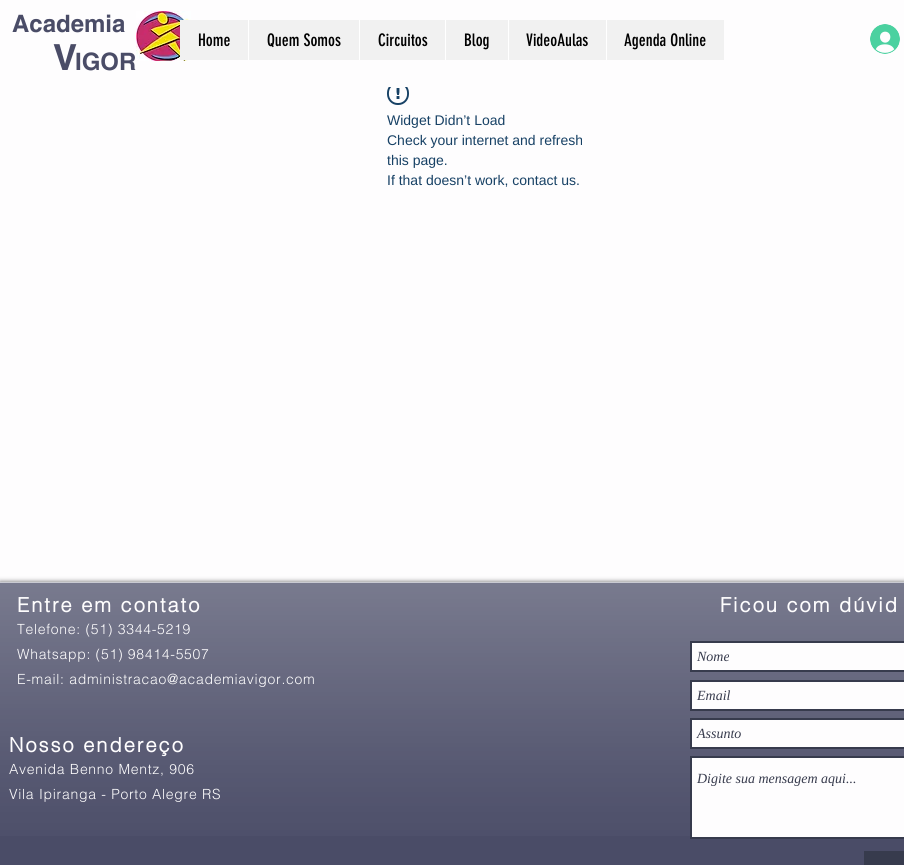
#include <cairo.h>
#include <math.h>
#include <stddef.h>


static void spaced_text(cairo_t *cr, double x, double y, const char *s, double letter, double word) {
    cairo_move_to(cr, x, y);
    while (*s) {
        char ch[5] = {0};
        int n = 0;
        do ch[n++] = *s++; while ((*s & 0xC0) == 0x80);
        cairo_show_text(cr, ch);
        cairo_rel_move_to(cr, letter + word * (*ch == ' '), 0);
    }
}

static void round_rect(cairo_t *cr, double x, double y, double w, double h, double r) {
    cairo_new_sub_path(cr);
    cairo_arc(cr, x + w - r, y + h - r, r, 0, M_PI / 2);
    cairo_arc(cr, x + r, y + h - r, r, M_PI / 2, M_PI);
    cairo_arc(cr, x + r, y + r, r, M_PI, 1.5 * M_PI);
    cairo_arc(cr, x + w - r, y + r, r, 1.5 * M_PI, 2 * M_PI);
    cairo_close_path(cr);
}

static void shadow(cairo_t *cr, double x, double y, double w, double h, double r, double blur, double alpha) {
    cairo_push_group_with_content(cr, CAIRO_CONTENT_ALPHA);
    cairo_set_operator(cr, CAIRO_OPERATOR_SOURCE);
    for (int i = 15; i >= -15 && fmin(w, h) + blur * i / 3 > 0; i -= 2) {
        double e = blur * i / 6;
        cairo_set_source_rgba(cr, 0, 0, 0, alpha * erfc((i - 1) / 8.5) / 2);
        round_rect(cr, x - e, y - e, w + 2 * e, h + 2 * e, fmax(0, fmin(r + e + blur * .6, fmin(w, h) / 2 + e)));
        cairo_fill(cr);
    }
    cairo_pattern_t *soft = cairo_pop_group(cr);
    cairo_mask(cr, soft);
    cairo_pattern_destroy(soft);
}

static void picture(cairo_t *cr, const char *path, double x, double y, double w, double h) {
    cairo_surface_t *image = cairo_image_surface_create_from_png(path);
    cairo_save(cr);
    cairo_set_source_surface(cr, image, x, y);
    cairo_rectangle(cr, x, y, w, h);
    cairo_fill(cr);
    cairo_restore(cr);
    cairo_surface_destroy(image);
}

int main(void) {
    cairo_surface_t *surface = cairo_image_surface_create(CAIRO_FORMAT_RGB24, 904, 865);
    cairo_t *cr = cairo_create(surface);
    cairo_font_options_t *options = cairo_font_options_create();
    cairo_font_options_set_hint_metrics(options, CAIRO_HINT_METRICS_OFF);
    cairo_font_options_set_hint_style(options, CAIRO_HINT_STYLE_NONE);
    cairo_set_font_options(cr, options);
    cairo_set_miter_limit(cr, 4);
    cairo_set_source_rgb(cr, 0.996, 0.992, 0.996);
    cairo_paint(cr);
    cairo_select_font_face(cr, "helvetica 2", CAIRO_FONT_SLANT_NORMAL, CAIRO_FONT_WEIGHT_BOLD);
    cairo_set_font_size(cr, 24);
    cairo_set_source_rgb(cr, 0.29, 0.298, 0.404);
    cairo_move_to(cr, 12, 32);
    cairo_show_text(cr, "Academia");
    picture(cr, "img1.png", 136, 11, 55, 50);
    cairo_set_font_size(cr, 36);
    cairo_move_to(cr, 53, 70);
    cairo_show_text(cr, "V");
    cairo_set_font_size(cr, 24);
    cairo_move_to(cr, 75, 70);
    cairo_show_text(cr, "IGOR");
    picture(cr, "img2.png", 870, 24, 30, 30);
    cairo_set_source_rgb(cr, 0.945, 0.945, 0.945);
    cairo_rectangle(cr, 180, 20, 544, 40);
    cairo_fill(cr);
    cairo_select_font_face(cr, "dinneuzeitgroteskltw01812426", CAIRO_FONT_SLANT_NORMAL, CAIRO_FONT_WEIGHT_NORMAL);
    cairo_set_font_size(cr, 17);
    cairo_set_source_rgb(cr, 0, 0, 0);
    cairo_move_to(cr, 198, 46);
    cairo_show_text(cr, "Home");
    cairo_set_source_rgb(cr, 1, 1, 1);
    cairo_rectangle(cr, 248, 20, 1, 40);
    cairo_fill(cr);
    cairo_set_source_rgb(cr, 0, 0, 0);
    cairo_move_to(cr, 267, 46);
    cairo_show_text(cr, "Quem Somos");
    cairo_set_source_rgb(cr, 1, 1, 1);
    cairo_rectangle(cr, 359, 20, 1, 40);
    cairo_fill(cr);
    cairo_set_source_rgb(cr, 0, 0, 0);
    cairo_move_to(cr, 378, 46);
    cairo_show_text(cr, "Circuitos");
    cairo_set_source_rgb(cr, 1, 1, 1);
    cairo_rectangle(cr, 445, 20, 1, 40);
    cairo_fill(cr);
    cairo_set_source_rgb(cr, 0, 0, 0);
    cairo_move_to(cr, 464, 46);
    cairo_show_text(cr, "Blog");
    cairo_set_source_rgb(cr, 1, 1, 1);
    cairo_rectangle(cr, 508, 20, 1, 40);
    cairo_fill(cr);
    cairo_set_source_rgb(cr, 0, 0, 0);
    cairo_move_to(cr, 526, 46);
    cairo_show_text(cr, "VideoAulas");
    cairo_set_source_rgb(cr, 1, 1, 1);
    cairo_rectangle(cr, 606, 20, 1, 40);
    cairo_fill(cr);
    cairo_set_source_rgb(cr, 0, 0, 0);
    cairo_move_to(cr, 624, 46);
    cairo_show_text(cr, "Agenda Online");
    picture(cr, "img3.png", 387, 87, 22, 18);
    cairo_select_font_face(cr, "Liberation Sans", CAIRO_FONT_SLANT_NORMAL, CAIRO_FONT_WEIGHT_NORMAL);
    cairo_set_font_size(cr, 14);
    cairo_set_source_rgb(cr, 0.09, 0.255, 0.396);
    cairo_move_to(cr, 387, 125);
    cairo_show_text(cr, "Widget Didn’t Load");
    cairo_move_to(cr, 387, 145);
    cairo_show_text(cr, "Check your internet and refresh");
    cairo_move_to(cr, 387, 165);
    cairo_show_text(cr, "this page.");
    cairo_move_to(cr, 387, 185);
    cairo_show_text(cr, "If that doesn’t work, contact us.");
    cairo_set_source_rgb(cr, 0, 0, 0);
    shadow(cr, 0, 582, 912, 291, 0, 2.5, 0.6);
    cairo_set_source_rgb(cr, 0.29, 0.298, 0.404);
    cairo_rectangle(cr, 0, 583, 904, 282);
    cairo_fill(cr);
    picture(cr, "img4.png", 0, 583, 904, 253);
    cairo_set_source_rgb(cr, 0.788, 0.792, 0.824);
    cairo_rectangle(cr, 0, 582, 904, 1);
    cairo_fill(cr);
    cairo_select_font_face(cr, "helvetica", CAIRO_FONT_SLANT_NORMAL, CAIRO_FONT_WEIGHT_BOLD);
    cairo_set_font_size(cr, 20);
    cairo_set_source_rgb(cr, 0.996, 0.992, 0.996);
    spaced_text(cr, 17, 612, "Entre em contato", 2, 0);
    cairo_select_font_face(cr, "helvetica Light", CAIRO_FONT_SLANT_NORMAL, CAIRO_FONT_WEIGHT_NORMAL);
    cairo_set_font_size(cr, 14);
    spaced_text(cr, 17, 634, "Telefone: (51) 3344-5219", 0.7, 0);
    spaced_text(cr, 17, 659, "Whatsapp: (51) 98414-5507", 0.7, 0);
    spaced_text(cr, 17, 684, "E-mail: administracao@academiavigor.com", 0.7, 0);
    cairo_select_font_face(cr, "helvetica", CAIRO_FONT_SLANT_NORMAL, CAIRO_FONT_WEIGHT_BOLD);
    cairo_set_font_size(cr, 20);
    spaced_text(cr, 720, 612, "Ficou com dúvid", 2, 0);
    spaced_text(cr, 9, 752, "Nosso endereço", 2, 0);
    cairo_select_font_face(cr, "helvetica Light", CAIRO_FONT_SLANT_NORMAL, CAIRO_FONT_WEIGHT_NORMAL);
    cairo_set_font_size(cr, 14);
    spaced_text(cr, 9, 774, "Avenida Benno Mentz, 906", 0.7, 0);
    spaced_text(cr, 9, 799, "Vila Ipiranga - Porto Alegre RS", 0.7, 0);
    cairo_rectangle(cr, 691, 642, 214, 29);
    cairo_fill_preserve(cr);
    cairo_set_source_rgb(cr, 0.216, 0.231, 0.302);
    cairo_stroke(cr);
    cairo_select_font_face(cr, "Liberation Serif", CAIRO_FONT_SLANT_ITALIC, CAIRO_FONT_WEIGHT_NORMAL);
    cairo_move_to(cr, 697, 661);
    cairo_show_text(cr, "Nome");
    cairo_set_source_rgb(cr, 0.996, 0.992, 0.996);
    cairo_rectangle(cr, 691, 681, 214, 29);
    cairo_fill_preserve(cr);
    cairo_set_source_rgb(cr, 0.216, 0.231, 0.302);
    cairo_stroke(cr);
    cairo_move_to(cr, 697, 700);
    cairo_show_text(cr, "Email");
    cairo_set_source_rgb(cr, 0.996, 0.992, 0.996);
    cairo_rectangle(cr, 691, 719, 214, 29);
    cairo_fill_preserve(cr);
    cairo_set_source_rgb(cr, 0.216, 0.231, 0.302);
    cairo_stroke(cr);
    cairo_move_to(cr, 697, 738);
    cairo_show_text(cr, "Assunto");
    cairo_set_source_rgb(cr, 0.996, 0.992, 0.996);
    cairo_rectangle(cr, 691, 757, 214, 81);
    cairo_fill_preserve(cr);
    cairo_set_source_rgb(cr, 0.216, 0.231, 0.302);
    cairo_stroke(cr);
    cairo_move_to(cr, 697, 783);
    cairo_show_text(cr, "Digite sua mensagem aqui...");
    cairo_rectangle(cr, 864, 851, 40, 14);
    cairo_fill(cr);
    cairo_surface_write_to_png(surface, "page.png");
    cairo_font_options_destroy(options);
    cairo_destroy(cr);
    cairo_surface_destroy(surface);
    return 0;
}
